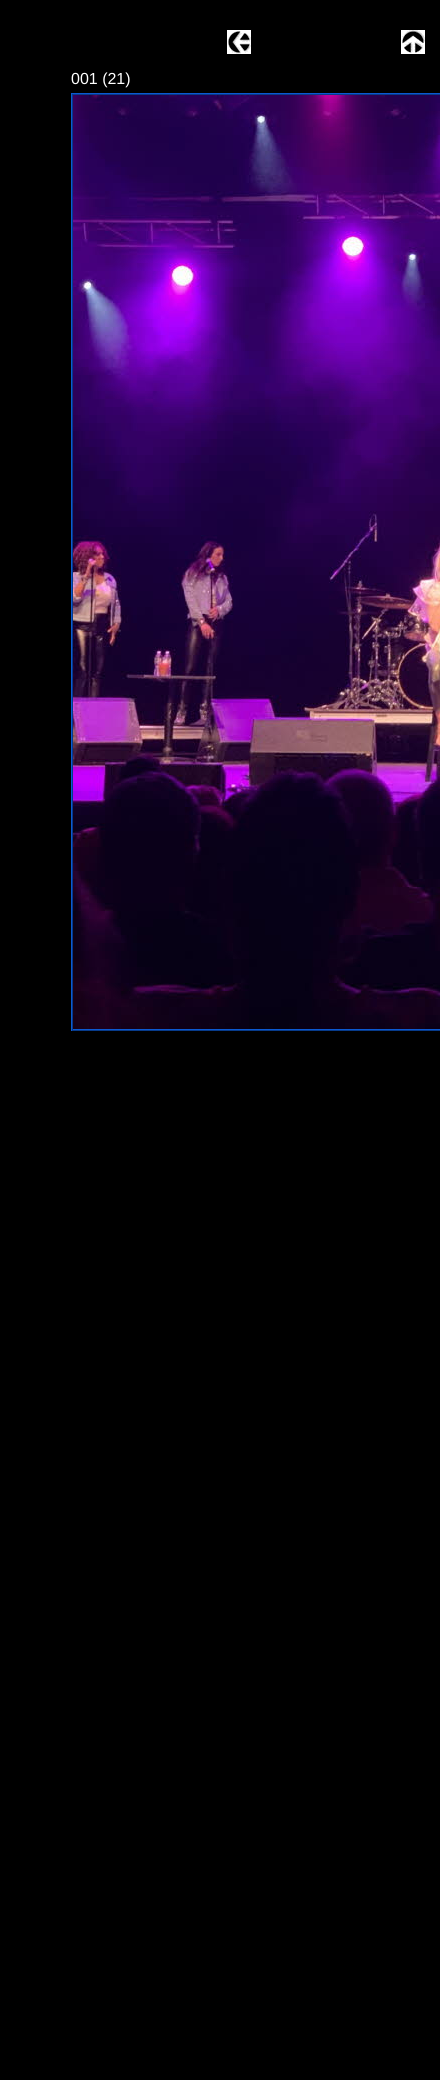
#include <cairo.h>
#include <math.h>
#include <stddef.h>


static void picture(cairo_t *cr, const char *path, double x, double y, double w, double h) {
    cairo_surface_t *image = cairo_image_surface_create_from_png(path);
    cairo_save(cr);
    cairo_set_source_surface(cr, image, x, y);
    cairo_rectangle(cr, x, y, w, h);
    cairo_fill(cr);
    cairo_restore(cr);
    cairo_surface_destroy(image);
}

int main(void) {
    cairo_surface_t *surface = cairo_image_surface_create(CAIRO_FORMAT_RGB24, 440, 2080);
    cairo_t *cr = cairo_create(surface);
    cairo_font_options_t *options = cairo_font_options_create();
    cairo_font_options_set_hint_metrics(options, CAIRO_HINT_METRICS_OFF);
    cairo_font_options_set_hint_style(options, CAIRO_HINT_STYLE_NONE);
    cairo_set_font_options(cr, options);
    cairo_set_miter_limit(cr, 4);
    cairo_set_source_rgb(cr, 0, 0, 0);
    cairo_paint(cr);
    picture(cr, "img1.png", 227, 30, 24, 24);
    picture(cr, "img2.png", 401, 30, 24, 24);
    cairo_select_font_face(cr, "Liberation Sans", CAIRO_FONT_SLANT_NORMAL, CAIRO_FONT_WEIGHT_NORMAL);
    cairo_set_font_size(cr, 16);
    cairo_set_source_rgb(cr, 1, 1, 1);
    cairo_move_to(cr, 71, 84);
    cairo_show_text(cr, "001 (21)");
    cairo_set_source_rgb(cr, 0.047, 0.349, 0.82);
    cairo_rectangle(cr, 71, 93, 369, 1);
    cairo_fill(cr);
    cairo_set_source_rgb(cr, 0.031, 0.231, 0.545);
    cairo_rectangle(cr, 71, 1030, 369, 1);
    cairo_fill(cr);
    cairo_set_source_rgb(cr, 0.047, 0.349, 0.82);
    cairo_rectangle(cr, 71, 93, 1, 938);
    cairo_fill(cr);
    cairo_set_source_rgb(cr, 0.031, 0.231, 0.545);
    cairo_rectangle(cr, 72, 94, 368, 1);
    cairo_fill(cr);
    cairo_set_source_rgb(cr, 0.047, 0.349, 0.82);
    cairo_rectangle(cr, 72, 1029, 368, 1);
    cairo_fill(cr);
    cairo_set_source_rgb(cr, 0.031, 0.231, 0.545);
    cairo_rectangle(cr, 72, 94, 1, 936);
    cairo_fill(cr);
    picture(cr, "img3.png", 73, 95, 367, 934);
    cairo_surface_write_to_png(surface, "page.png");
    cairo_font_options_destroy(options);
    cairo_destroy(cr);
    cairo_surface_destroy(surface);
    return 0;
}
